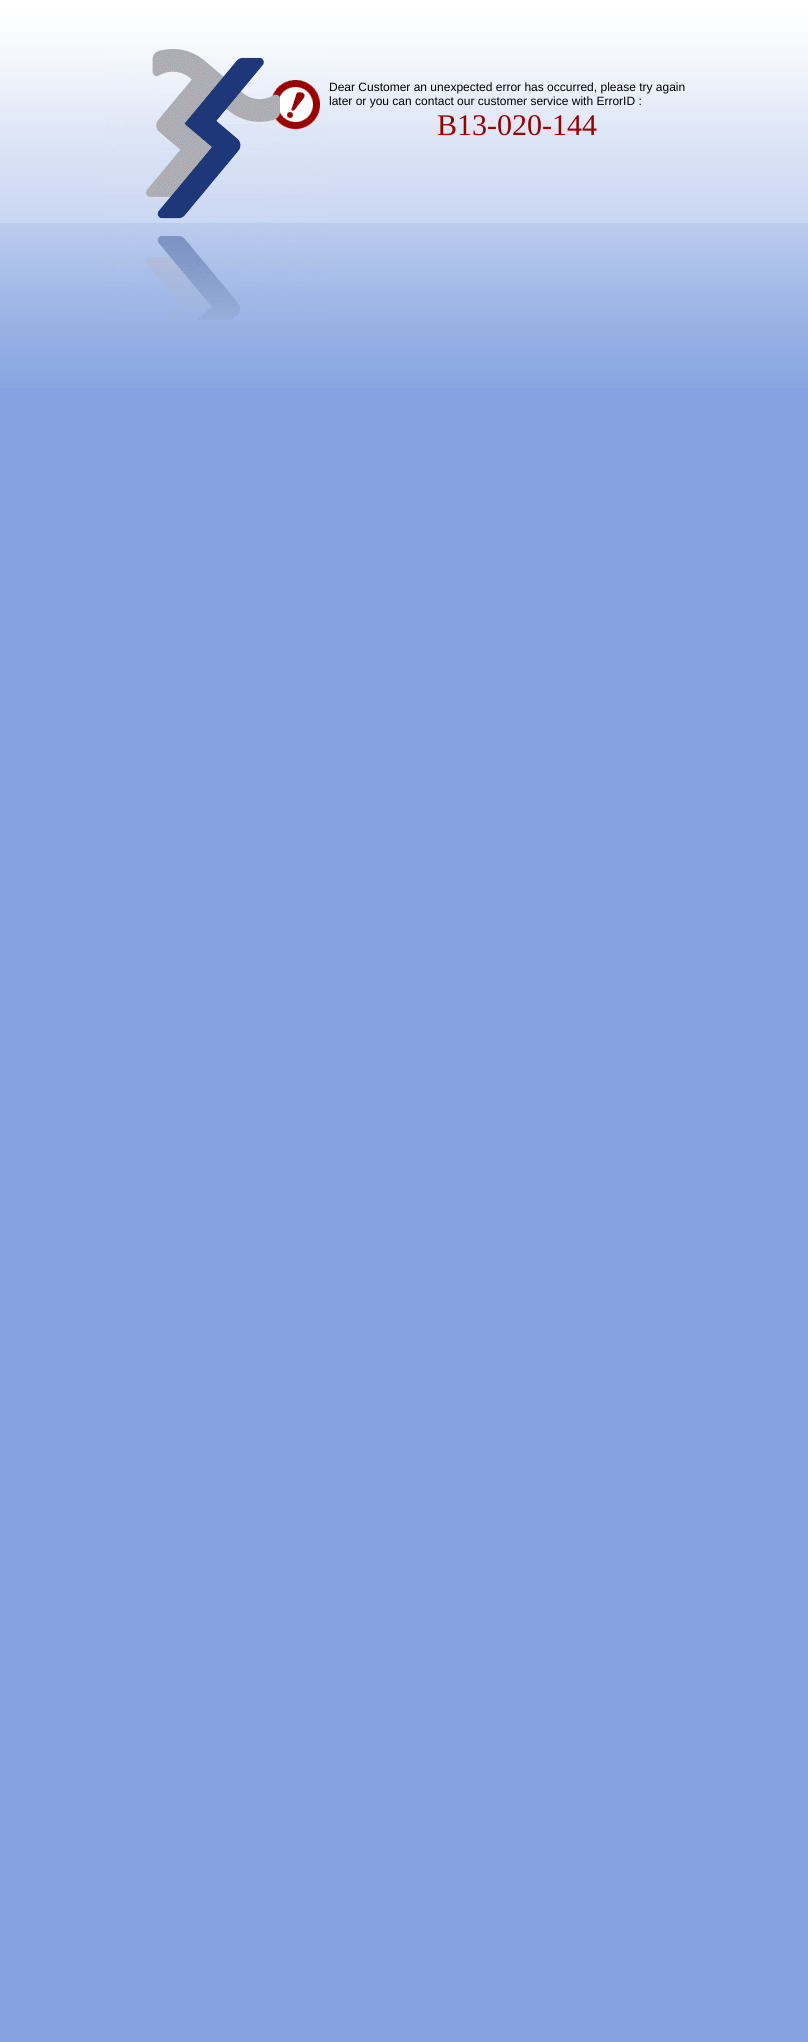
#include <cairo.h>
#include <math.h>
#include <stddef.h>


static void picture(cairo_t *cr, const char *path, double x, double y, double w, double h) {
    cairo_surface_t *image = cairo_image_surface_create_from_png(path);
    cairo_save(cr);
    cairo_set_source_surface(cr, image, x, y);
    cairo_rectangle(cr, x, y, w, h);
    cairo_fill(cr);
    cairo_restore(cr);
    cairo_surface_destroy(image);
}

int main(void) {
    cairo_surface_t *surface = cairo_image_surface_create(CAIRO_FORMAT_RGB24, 808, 2042);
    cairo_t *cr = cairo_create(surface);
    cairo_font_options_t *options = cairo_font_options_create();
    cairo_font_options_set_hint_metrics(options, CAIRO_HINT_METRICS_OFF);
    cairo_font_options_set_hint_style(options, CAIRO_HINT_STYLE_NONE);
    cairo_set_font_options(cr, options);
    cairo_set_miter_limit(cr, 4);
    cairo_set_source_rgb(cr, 0.522, 0.639, 0.878);
    cairo_paint(cr);
    picture(cr, "img1.png", 0, 0, 808, 388);
    picture(cr, "img2.png", 105, 49, 223, 271);
    cairo_select_font_face(cr, "Liberation Sans", CAIRO_FONT_SLANT_NORMAL, CAIRO_FONT_WEIGHT_NORMAL);
    cairo_set_font_size(cr, 12);
    cairo_set_source_rgb(cr, 0, 0, 0);
    cairo_move_to(cr, 329, 91);
    cairo_show_text(cr, "Dear Customer an unexpected error has occurred, please try again");
    cairo_move_to(cr, 329, 105);
    cairo_show_text(cr, "later or you can contact our customer service with ErrorID :");
    cairo_select_font_face(cr, "Liberation Serif", CAIRO_FONT_SLANT_NORMAL, CAIRO_FONT_WEIGHT_NORMAL);
    cairo_set_font_size(cr, 30);
    cairo_set_source_rgb(cr, 0.6, 0, 0);
    cairo_move_to(cr, 437, 135);
    cairo_show_text(cr, "B13-020-144");
    cairo_surface_write_to_png(surface, "page.png");
    cairo_font_options_destroy(options);
    cairo_destroy(cr);
    cairo_surface_destroy(surface);
    return 0;
}
